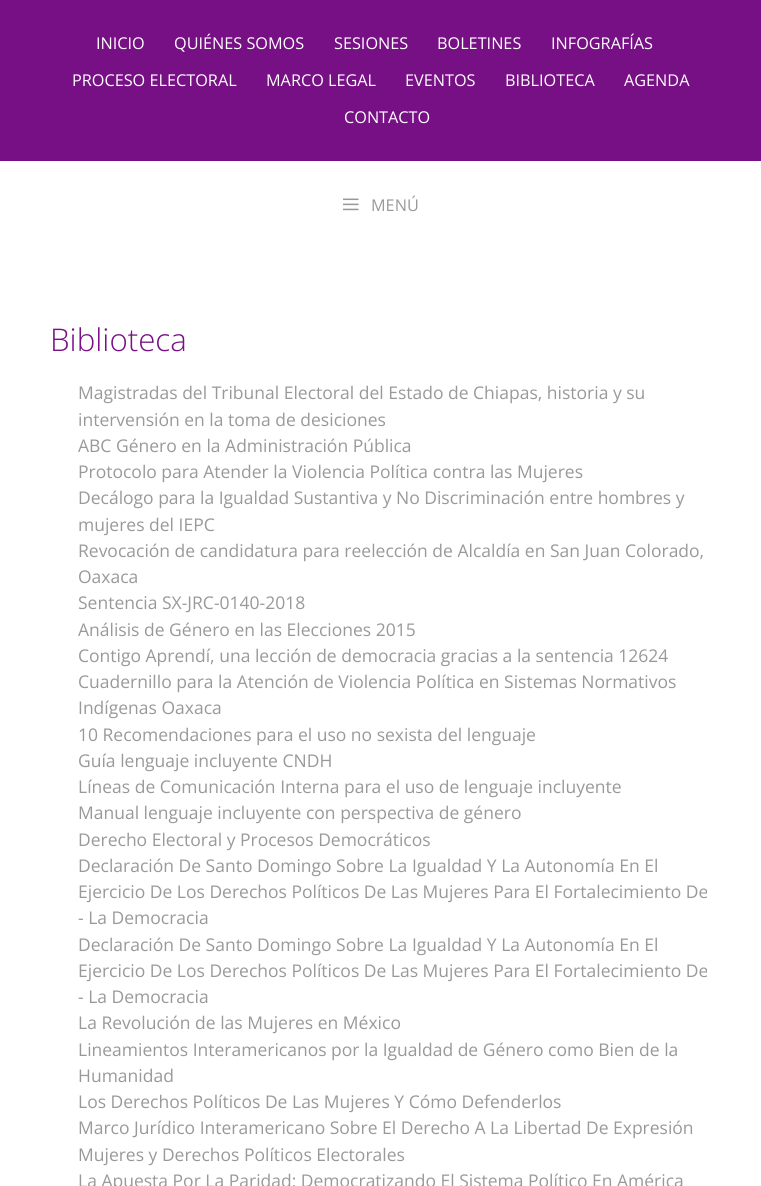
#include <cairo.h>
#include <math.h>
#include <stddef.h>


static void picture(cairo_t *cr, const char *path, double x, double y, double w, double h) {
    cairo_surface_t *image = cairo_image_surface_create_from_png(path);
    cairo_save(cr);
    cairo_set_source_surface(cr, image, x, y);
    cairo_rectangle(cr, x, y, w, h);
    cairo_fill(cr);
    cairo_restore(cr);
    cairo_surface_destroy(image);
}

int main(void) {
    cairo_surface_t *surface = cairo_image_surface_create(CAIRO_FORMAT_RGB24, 761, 1186);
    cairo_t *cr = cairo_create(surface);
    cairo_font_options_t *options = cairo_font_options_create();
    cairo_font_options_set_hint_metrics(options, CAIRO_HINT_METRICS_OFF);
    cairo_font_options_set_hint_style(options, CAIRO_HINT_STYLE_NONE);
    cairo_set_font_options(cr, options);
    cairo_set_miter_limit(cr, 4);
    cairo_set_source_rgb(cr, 1, 1, 1);
    cairo_paint(cr);
    cairo_set_source_rgb(cr, 0.467, 0.063, 0.522);
    cairo_rectangle(cr, 0, 0, 761, 161);
    cairo_fill(cr);
    cairo_select_font_face(cr, "Open Sans", CAIRO_FONT_SLANT_NORMAL, CAIRO_FONT_WEIGHT_NORMAL);
    cairo_set_font_size(cr, 16.25);
    cairo_set_source_rgb(cr, 1, 1, 1);
    cairo_move_to(cr, 96, 49);
    cairo_show_text(cr, "INICIO");
    cairo_move_to(cr, 174, 49);
    cairo_show_text(cr, "QUIÉNES SOMOS");
    cairo_move_to(cr, 334, 49);
    cairo_show_text(cr, "SESIONES");
    cairo_move_to(cr, 437, 49);
    cairo_show_text(cr, "BOLETINES");
    cairo_move_to(cr, 551, 49);
    cairo_show_text(cr, "INFOGRAFÍAS");
    cairo_move_to(cr, 72, 86);
    cairo_show_text(cr, "PROCESO ELECTORAL");
    cairo_move_to(cr, 266, 86);
    cairo_show_text(cr, "MARCO LEGAL");
    cairo_move_to(cr, 405, 86);
    cairo_show_text(cr, "EVENTOS");
    cairo_move_to(cr, 505, 86);
    cairo_show_text(cr, "BIBLIOTECA");
    cairo_move_to(cr, 624, 86);
    cairo_show_text(cr, "AGENDA");
    cairo_move_to(cr, 344, 123);
    cairo_show_text(cr, "CONTACTO");
    picture(cr, "img1.png", 343, 198, 16, 13);
    cairo_set_source_rgb(cr, 0.6, 0.6, 0.6);
    cairo_move_to(cr, 371, 211);
    cairo_show_text(cr, "MENÚ");
    cairo_select_font_face(cr, "Open Sans Light", CAIRO_FONT_SLANT_NORMAL, CAIRO_FONT_WEIGHT_NORMAL);
    cairo_set_font_size(cr, 31.25);
    cairo_set_source_rgb(cr, 0.467, 0.063, 0.522);
    cairo_move_to(cr, 50, 351);
    cairo_show_text(cr, "Biblioteca");
    cairo_select_font_face(cr, "Open Sans", CAIRO_FONT_SLANT_NORMAL, CAIRO_FONT_WEIGHT_NORMAL);
    cairo_set_font_size(cr, 17.5);
    cairo_set_source_rgb(cr, 0.6, 0.6, 0.6);
    cairo_move_to(cr, 78, 399);
    cairo_show_text(cr, "Magistradas del Tribunal Electoral del Estado de Chiapas, historia y su");
    cairo_move_to(cr, 78, 426);
    cairo_show_text(cr, "intervensión en la toma de desiciones");
    cairo_move_to(cr, 78, 452);
    cairo_show_text(cr, "ABC Género en la Administración Pública");
    cairo_move_to(cr, 78, 478);
    cairo_show_text(cr, "Protocolo para Atender la Violencia Política contra las Mujeres");
    cairo_move_to(cr, 78, 504);
    cairo_show_text(cr, "Decálogo para la Igualdad Sustantiva y No Discriminación entre hombres y");
    cairo_move_to(cr, 78, 531);
    cairo_show_text(cr, "mujeres del IEPC");
    cairo_move_to(cr, 78, 557);
    cairo_show_text(cr, "Revocación de candidatura para reelección de Alcaldía en San Juan Colorado,");
    cairo_move_to(cr, 78, 583);
    cairo_show_text(cr, "Oaxaca");
    cairo_move_to(cr, 78, 609);
    cairo_show_text(cr, "Sentencia SX-JRC-0140-2018");
    cairo_move_to(cr, 78, 636);
    cairo_show_text(cr, "Análisis de Género en las Elecciones 2015");
    cairo_move_to(cr, 78, 662);
    cairo_show_text(cr, "Contigo Aprendí, una lección de democracia gracias a la sentencia 12624");
    cairo_move_to(cr, 78, 688);
    cairo_show_text(cr, "Cuadernillo para la Atención de Violencia Política en Sistemas Normativos");
    cairo_move_to(cr, 78, 714);
    cairo_show_text(cr, "Indígenas Oaxaca");
    cairo_move_to(cr, 78, 741);
    cairo_show_text(cr, "10 Recomendaciones para el uso no sexista del lenguaje");
    cairo_move_to(cr, 78, 767);
    cairo_show_text(cr, "Guía lenguaje incluyente CNDH");
    cairo_move_to(cr, 78, 793);
    cairo_show_text(cr, "Líneas de Comunicación Interna para el uso de lenguaje incluyente");
    cairo_move_to(cr, 78, 819);
    cairo_show_text(cr, "Manual lenguaje incluyente con perspectiva de género");
    cairo_move_to(cr, 78, 846);
    cairo_show_text(cr, "Derecho Electoral y Procesos Democráticos");
    cairo_move_to(cr, 78, 872);
    cairo_show_text(cr, "Declaración De Santo Domingo Sobre La Igualdad Y La Autonomía En El");
    cairo_move_to(cr, 78, 898);
    cairo_show_text(cr, "Ejercicio De Los Derechos Políticos De Las Mujeres Para El Fortalecimiento De");
    cairo_move_to(cr, 78, 924);
    cairo_show_text(cr, "- La Democracia");
    cairo_move_to(cr, 78, 951);
    cairo_show_text(cr, "Declaración De Santo Domingo Sobre La Igualdad Y La Autonomía En El");
    cairo_move_to(cr, 78, 977);
    cairo_show_text(cr, "Ejercicio De Los Derechos Políticos De Las Mujeres Para El Fortalecimiento De");
    cairo_move_to(cr, 78, 1003);
    cairo_show_text(cr, "- La Democracia");
    cairo_move_to(cr, 78, 1029);
    cairo_show_text(cr, "La Revolución de las Mujeres en México");
    cairo_move_to(cr, 78, 1056);
    cairo_show_text(cr, "Lineamientos Interamericanos por la Igualdad de Género como Bien de la");
    cairo_move_to(cr, 78, 1082);
    cairo_show_text(cr, "Humanidad");
    cairo_move_to(cr, 78, 1108);
    cairo_show_text(cr, "Los Derechos Políticos De Las Mujeres Y Cómo Defenderlos");
    cairo_move_to(cr, 78, 1134);
    cairo_show_text(cr, "Marco Jurídico Interamericano Sobre El Derecho A La Libertad De Expresión");
    cairo_move_to(cr, 78, 1161);
    cairo_show_text(cr, "Mujeres y Derechos Políticos Electorales");
    cairo_move_to(cr, 78, 1187);
    cairo_show_text(cr, "La Apuesta Por La Paridad: Democratizando El Sistema Político En América");
    cairo_surface_write_to_png(surface, "page.png");
    cairo_font_options_destroy(options);
    cairo_destroy(cr);
    cairo_surface_destroy(surface);
    return 0;
}
